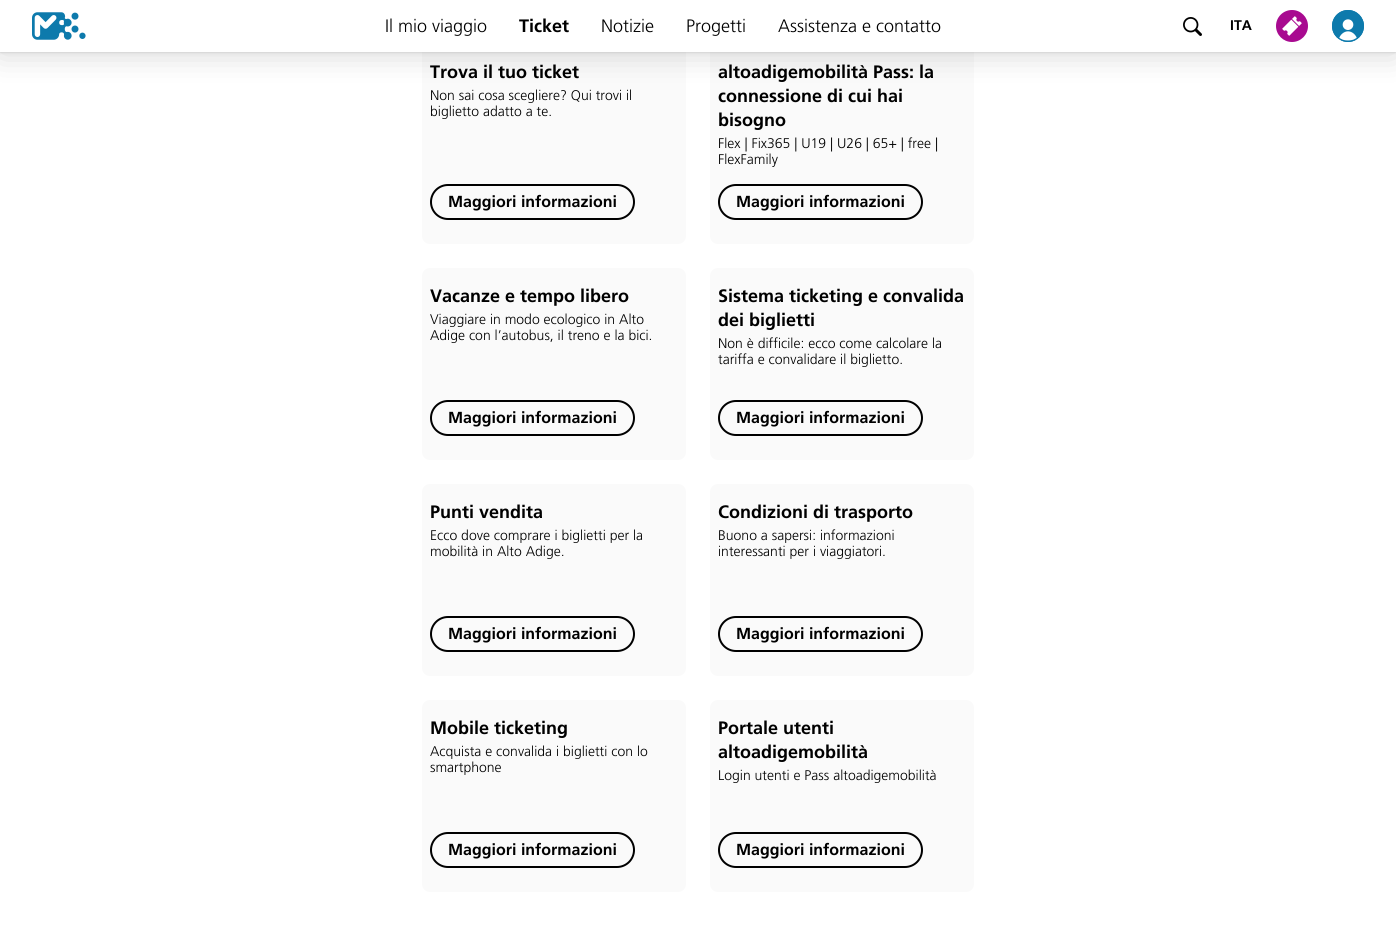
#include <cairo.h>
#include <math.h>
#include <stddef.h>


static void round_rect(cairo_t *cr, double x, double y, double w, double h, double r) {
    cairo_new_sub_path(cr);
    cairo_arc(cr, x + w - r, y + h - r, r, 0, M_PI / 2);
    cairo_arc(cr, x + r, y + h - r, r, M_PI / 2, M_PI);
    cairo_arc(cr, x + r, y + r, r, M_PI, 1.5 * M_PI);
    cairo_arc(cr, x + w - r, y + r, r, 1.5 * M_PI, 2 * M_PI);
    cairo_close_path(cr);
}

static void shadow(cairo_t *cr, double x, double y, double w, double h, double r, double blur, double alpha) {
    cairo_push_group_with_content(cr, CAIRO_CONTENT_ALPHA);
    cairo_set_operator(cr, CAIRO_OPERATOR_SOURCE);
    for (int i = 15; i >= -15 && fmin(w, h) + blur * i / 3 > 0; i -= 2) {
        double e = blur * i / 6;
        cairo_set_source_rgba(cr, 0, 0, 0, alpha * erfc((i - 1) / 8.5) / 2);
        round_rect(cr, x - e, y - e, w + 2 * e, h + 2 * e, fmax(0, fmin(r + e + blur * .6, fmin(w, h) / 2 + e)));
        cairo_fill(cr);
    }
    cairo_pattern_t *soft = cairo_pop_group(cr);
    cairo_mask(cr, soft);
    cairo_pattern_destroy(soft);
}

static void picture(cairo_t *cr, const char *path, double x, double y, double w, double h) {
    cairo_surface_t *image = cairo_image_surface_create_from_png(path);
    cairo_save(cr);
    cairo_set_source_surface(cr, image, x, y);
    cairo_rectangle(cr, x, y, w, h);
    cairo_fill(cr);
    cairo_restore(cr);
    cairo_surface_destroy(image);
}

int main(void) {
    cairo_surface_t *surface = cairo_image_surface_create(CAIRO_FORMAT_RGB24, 1396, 932);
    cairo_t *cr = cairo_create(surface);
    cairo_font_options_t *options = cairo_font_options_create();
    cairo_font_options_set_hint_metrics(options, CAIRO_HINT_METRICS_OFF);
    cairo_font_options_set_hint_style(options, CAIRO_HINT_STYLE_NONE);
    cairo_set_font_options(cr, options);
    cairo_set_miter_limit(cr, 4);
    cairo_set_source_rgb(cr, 1, 1, 1);
    cairo_paint(cr);
    cairo_set_source_rgb(cr, 0.98, 0.98, 0.98);
    round_rect(cr, 422, 44, 264, 200, 8);
    cairo_fill(cr);
    round_rect(cr, 710, 44, 264, 200, 8);
    cairo_fill(cr);
    cairo_set_source_rgb(cr, 0, 0, 0);
    shadow(cr, 0, 2, 1396, 52, 0, 16, 0.16);
    shadow(cr, 0, 1, 1396, 52, 0, 1, 0.1);
    cairo_set_source_rgb(cr, 1, 1, 1);
    cairo_rectangle(cr, 0, 0, 1396, 52);
    cairo_fill(cr);
    picture(cr, "img1.png", 32, 12, 54, 28);
    cairo_select_font_face(cr, "Frutiger Light", CAIRO_FONT_SLANT_NORMAL, CAIRO_FONT_WEIGHT_NORMAL);
    cairo_set_font_size(cr, 18);
    cairo_set_source_rgb(cr, 0, 0, 0);
    cairo_move_to(cr, 385, 32);
    cairo_show_text(cr, "Il mio viaggio");
    cairo_select_font_face(cr, "Frutiger", CAIRO_FONT_SLANT_NORMAL, CAIRO_FONT_WEIGHT_BOLD);
    cairo_move_to(cr, 519, 32);
    cairo_show_text(cr, "Ticket");
    cairo_select_font_face(cr, "Frutiger Light", CAIRO_FONT_SLANT_NORMAL, CAIRO_FONT_WEIGHT_NORMAL);
    cairo_move_to(cr, 601, 32);
    cairo_show_text(cr, "Notizie");
    cairo_move_to(cr, 686, 32);
    cairo_show_text(cr, "Progetti");
    cairo_move_to(cr, 778, 32);
    cairo_show_text(cr, "Assistenza e contatto");
    picture(cr, "img2.png", 1183, 17, 19, 19);
    cairo_select_font_face(cr, "Frutiger", CAIRO_FONT_SLANT_NORMAL, CAIRO_FONT_WEIGHT_BOLD);
    cairo_set_font_size(cr, 14);
    cairo_move_to(cr, 1230, 30);
    cairo_show_text(cr, "ITA");
    picture(cr, "img3.png", 1276, 10, 32, 32);
    picture(cr, "img4.png", 1332, 10, 32, 32);
    cairo_set_font_size(cr, 18);
    cairo_move_to(cr, 430, 78);
    cairo_show_text(cr, "Trova il tuo ticket");
    cairo_select_font_face(cr, "Frutiger Light", CAIRO_FONT_SLANT_NORMAL, CAIRO_FONT_WEIGHT_NORMAL);
    cairo_set_font_size(cr, 14);
    cairo_move_to(cr, 430, 100);
    cairo_show_text(cr, "Non sai cosa scegliere? Qui trovi il");
    cairo_move_to(cr, 430, 116);
    cairo_show_text(cr, "biglietto adatto a te.");
    round_rect(cr, 431, 185, 203, 34, 17);
    cairo_stroke(cr);
    cairo_select_font_face(cr, "Frutiger", CAIRO_FONT_SLANT_NORMAL, CAIRO_FONT_WEIGHT_BOLD);
    cairo_set_font_size(cr, 16);
    cairo_move_to(cr, 448, 207);
    cairo_show_text(cr, "Maggiori informazioni");
    cairo_set_font_size(cr, 18);
    cairo_move_to(cr, 718, 78);
    cairo_show_text(cr, "altoadigemobilità Pass: la");
    cairo_move_to(cr, 718, 102);
    cairo_show_text(cr, "connessione di cui hai");
    cairo_move_to(cr, 718, 126);
    cairo_show_text(cr, "bisogno");
    cairo_select_font_face(cr, "Frutiger Light", CAIRO_FONT_SLANT_NORMAL, CAIRO_FONT_WEIGHT_NORMAL);
    cairo_set_font_size(cr, 14);
    cairo_move_to(cr, 718, 148);
    cairo_show_text(cr, "Flex | Fix365 | U19 | U26 | 65+ | free |");
    cairo_move_to(cr, 718, 164);
    cairo_show_text(cr, "FlexFamily");
    round_rect(cr, 719, 185, 203, 34, 17);
    cairo_stroke(cr);
    cairo_select_font_face(cr, "Frutiger", CAIRO_FONT_SLANT_NORMAL, CAIRO_FONT_WEIGHT_BOLD);
    cairo_set_font_size(cr, 16);
    cairo_move_to(cr, 736, 207);
    cairo_show_text(cr, "Maggiori informazioni");
    cairo_set_source_rgb(cr, 0.98, 0.98, 0.98);
    round_rect(cr, 422, 268, 264, 192, 8);
    cairo_fill(cr);
    cairo_set_font_size(cr, 18);
    cairo_set_source_rgb(cr, 0, 0, 0);
    cairo_move_to(cr, 430, 302);
    cairo_show_text(cr, "Vacanze e tempo libero");
    cairo_select_font_face(cr, "Frutiger Light", CAIRO_FONT_SLANT_NORMAL, CAIRO_FONT_WEIGHT_NORMAL);
    cairo_set_font_size(cr, 14);
    cairo_move_to(cr, 430, 324);
    cairo_show_text(cr, "Viaggiare in modo ecologico in Alto");
    cairo_move_to(cr, 430, 340);
    cairo_show_text(cr, "Adige con l’autobus, il treno e la bici.");
    round_rect(cr, 431, 401, 203, 34, 17);
    cairo_stroke(cr);
    cairo_select_font_face(cr, "Frutiger", CAIRO_FONT_SLANT_NORMAL, CAIRO_FONT_WEIGHT_BOLD);
    cairo_set_font_size(cr, 16);
    cairo_move_to(cr, 448, 423);
    cairo_show_text(cr, "Maggiori informazioni");
    cairo_set_source_rgb(cr, 0.98, 0.98, 0.98);
    round_rect(cr, 710, 268, 264, 192, 8);
    cairo_fill(cr);
    cairo_set_font_size(cr, 18);
    cairo_set_source_rgb(cr, 0, 0, 0);
    cairo_move_to(cr, 718, 302);
    cairo_show_text(cr, "Sistema ticketing e convalida");
    cairo_move_to(cr, 718, 326);
    cairo_show_text(cr, "dei biglietti");
    cairo_select_font_face(cr, "Frutiger Light", CAIRO_FONT_SLANT_NORMAL, CAIRO_FONT_WEIGHT_NORMAL);
    cairo_set_font_size(cr, 14);
    cairo_move_to(cr, 718, 348);
    cairo_show_text(cr, "Non è difficile: ecco come calcolare la");
    cairo_move_to(cr, 718, 364);
    cairo_show_text(cr, "tariffa e convalidare il biglietto.");
    round_rect(cr, 719, 401, 203, 34, 17);
    cairo_stroke(cr);
    cairo_select_font_face(cr, "Frutiger", CAIRO_FONT_SLANT_NORMAL, CAIRO_FONT_WEIGHT_BOLD);
    cairo_set_font_size(cr, 16);
    cairo_move_to(cr, 736, 423);
    cairo_show_text(cr, "Maggiori informazioni");
    cairo_set_source_rgb(cr, 0.98, 0.98, 0.98);
    round_rect(cr, 422, 484, 264, 192, 8);
    cairo_fill(cr);
    cairo_set_font_size(cr, 18);
    cairo_set_source_rgb(cr, 0, 0, 0);
    cairo_move_to(cr, 430, 518);
    cairo_show_text(cr, "Punti vendita");
    cairo_select_font_face(cr, "Frutiger Light", CAIRO_FONT_SLANT_NORMAL, CAIRO_FONT_WEIGHT_NORMAL);
    cairo_set_font_size(cr, 14);
    cairo_move_to(cr, 430, 540);
    cairo_show_text(cr, "Ecco dove comprare i biglietti per la");
    cairo_move_to(cr, 430, 556);
    cairo_show_text(cr, "mobilità in Alto Adige.");
    round_rect(cr, 431, 617, 203, 34, 17);
    cairo_stroke(cr);
    cairo_select_font_face(cr, "Frutiger", CAIRO_FONT_SLANT_NORMAL, CAIRO_FONT_WEIGHT_BOLD);
    cairo_set_font_size(cr, 16);
    cairo_move_to(cr, 448, 639);
    cairo_show_text(cr, "Maggiori informazioni");
    cairo_set_source_rgb(cr, 0.98, 0.98, 0.98);
    round_rect(cr, 710, 484, 264, 192, 8);
    cairo_fill(cr);
    cairo_set_font_size(cr, 18);
    cairo_set_source_rgb(cr, 0, 0, 0);
    cairo_move_to(cr, 718, 518);
    cairo_show_text(cr, "Condizioni di trasporto");
    cairo_select_font_face(cr, "Frutiger Light", CAIRO_FONT_SLANT_NORMAL, CAIRO_FONT_WEIGHT_NORMAL);
    cairo_set_font_size(cr, 14);
    cairo_move_to(cr, 718, 540);
    cairo_show_text(cr, "Buono a sapersi: informazioni");
    cairo_move_to(cr, 718, 556);
    cairo_show_text(cr, "interessanti per i viaggiatori.");
    round_rect(cr, 719, 617, 203, 34, 17);
    cairo_stroke(cr);
    cairo_select_font_face(cr, "Frutiger", CAIRO_FONT_SLANT_NORMAL, CAIRO_FONT_WEIGHT_BOLD);
    cairo_set_font_size(cr, 16);
    cairo_move_to(cr, 736, 639);
    cairo_show_text(cr, "Maggiori informazioni");
    cairo_set_source_rgb(cr, 0.98, 0.98, 0.98);
    round_rect(cr, 422, 700, 264, 192, 8);
    cairo_fill(cr);
    cairo_set_font_size(cr, 18);
    cairo_set_source_rgb(cr, 0, 0, 0);
    cairo_move_to(cr, 430, 734);
    cairo_show_text(cr, "Mobile ticketing");
    cairo_select_font_face(cr, "Frutiger Light", CAIRO_FONT_SLANT_NORMAL, CAIRO_FONT_WEIGHT_NORMAL);
    cairo_set_font_size(cr, 14);
    cairo_move_to(cr, 430, 756);
    cairo_show_text(cr, "Acquista e convalida i biglietti con lo");
    cairo_move_to(cr, 430, 772);
    cairo_show_text(cr, "smartphone");
    round_rect(cr, 431, 833, 203, 34, 17);
    cairo_stroke(cr);
    cairo_select_font_face(cr, "Frutiger", CAIRO_FONT_SLANT_NORMAL, CAIRO_FONT_WEIGHT_BOLD);
    cairo_set_font_size(cr, 16);
    cairo_move_to(cr, 448, 855);
    cairo_show_text(cr, "Maggiori informazioni");
    cairo_set_source_rgb(cr, 0.98, 0.98, 0.98);
    round_rect(cr, 710, 700, 264, 192, 8);
    cairo_fill(cr);
    cairo_set_font_size(cr, 18);
    cairo_set_source_rgb(cr, 0, 0, 0);
    cairo_move_to(cr, 718, 734);
    cairo_show_text(cr, "Portale utenti");
    cairo_move_to(cr, 718, 758);
    cairo_show_text(cr, "altoadigemobilità");
    cairo_select_font_face(cr, "Frutiger Light", CAIRO_FONT_SLANT_NORMAL, CAIRO_FONT_WEIGHT_NORMAL);
    cairo_set_font_size(cr, 14);
    cairo_move_to(cr, 718, 780);
    cairo_show_text(cr, "Login utenti e Pass altoadigemobilità");
    round_rect(cr, 719, 833, 203, 34, 17);
    cairo_stroke(cr);
    cairo_select_font_face(cr, "Frutiger", CAIRO_FONT_SLANT_NORMAL, CAIRO_FONT_WEIGHT_BOLD);
    cairo_set_font_size(cr, 16);
    cairo_move_to(cr, 736, 855);
    cairo_show_text(cr, "Maggiori informazioni");
    cairo_surface_write_to_png(surface, "page.png");
    cairo_font_options_destroy(options);
    cairo_destroy(cr);
    cairo_surface_destroy(surface);
    return 0;
}
